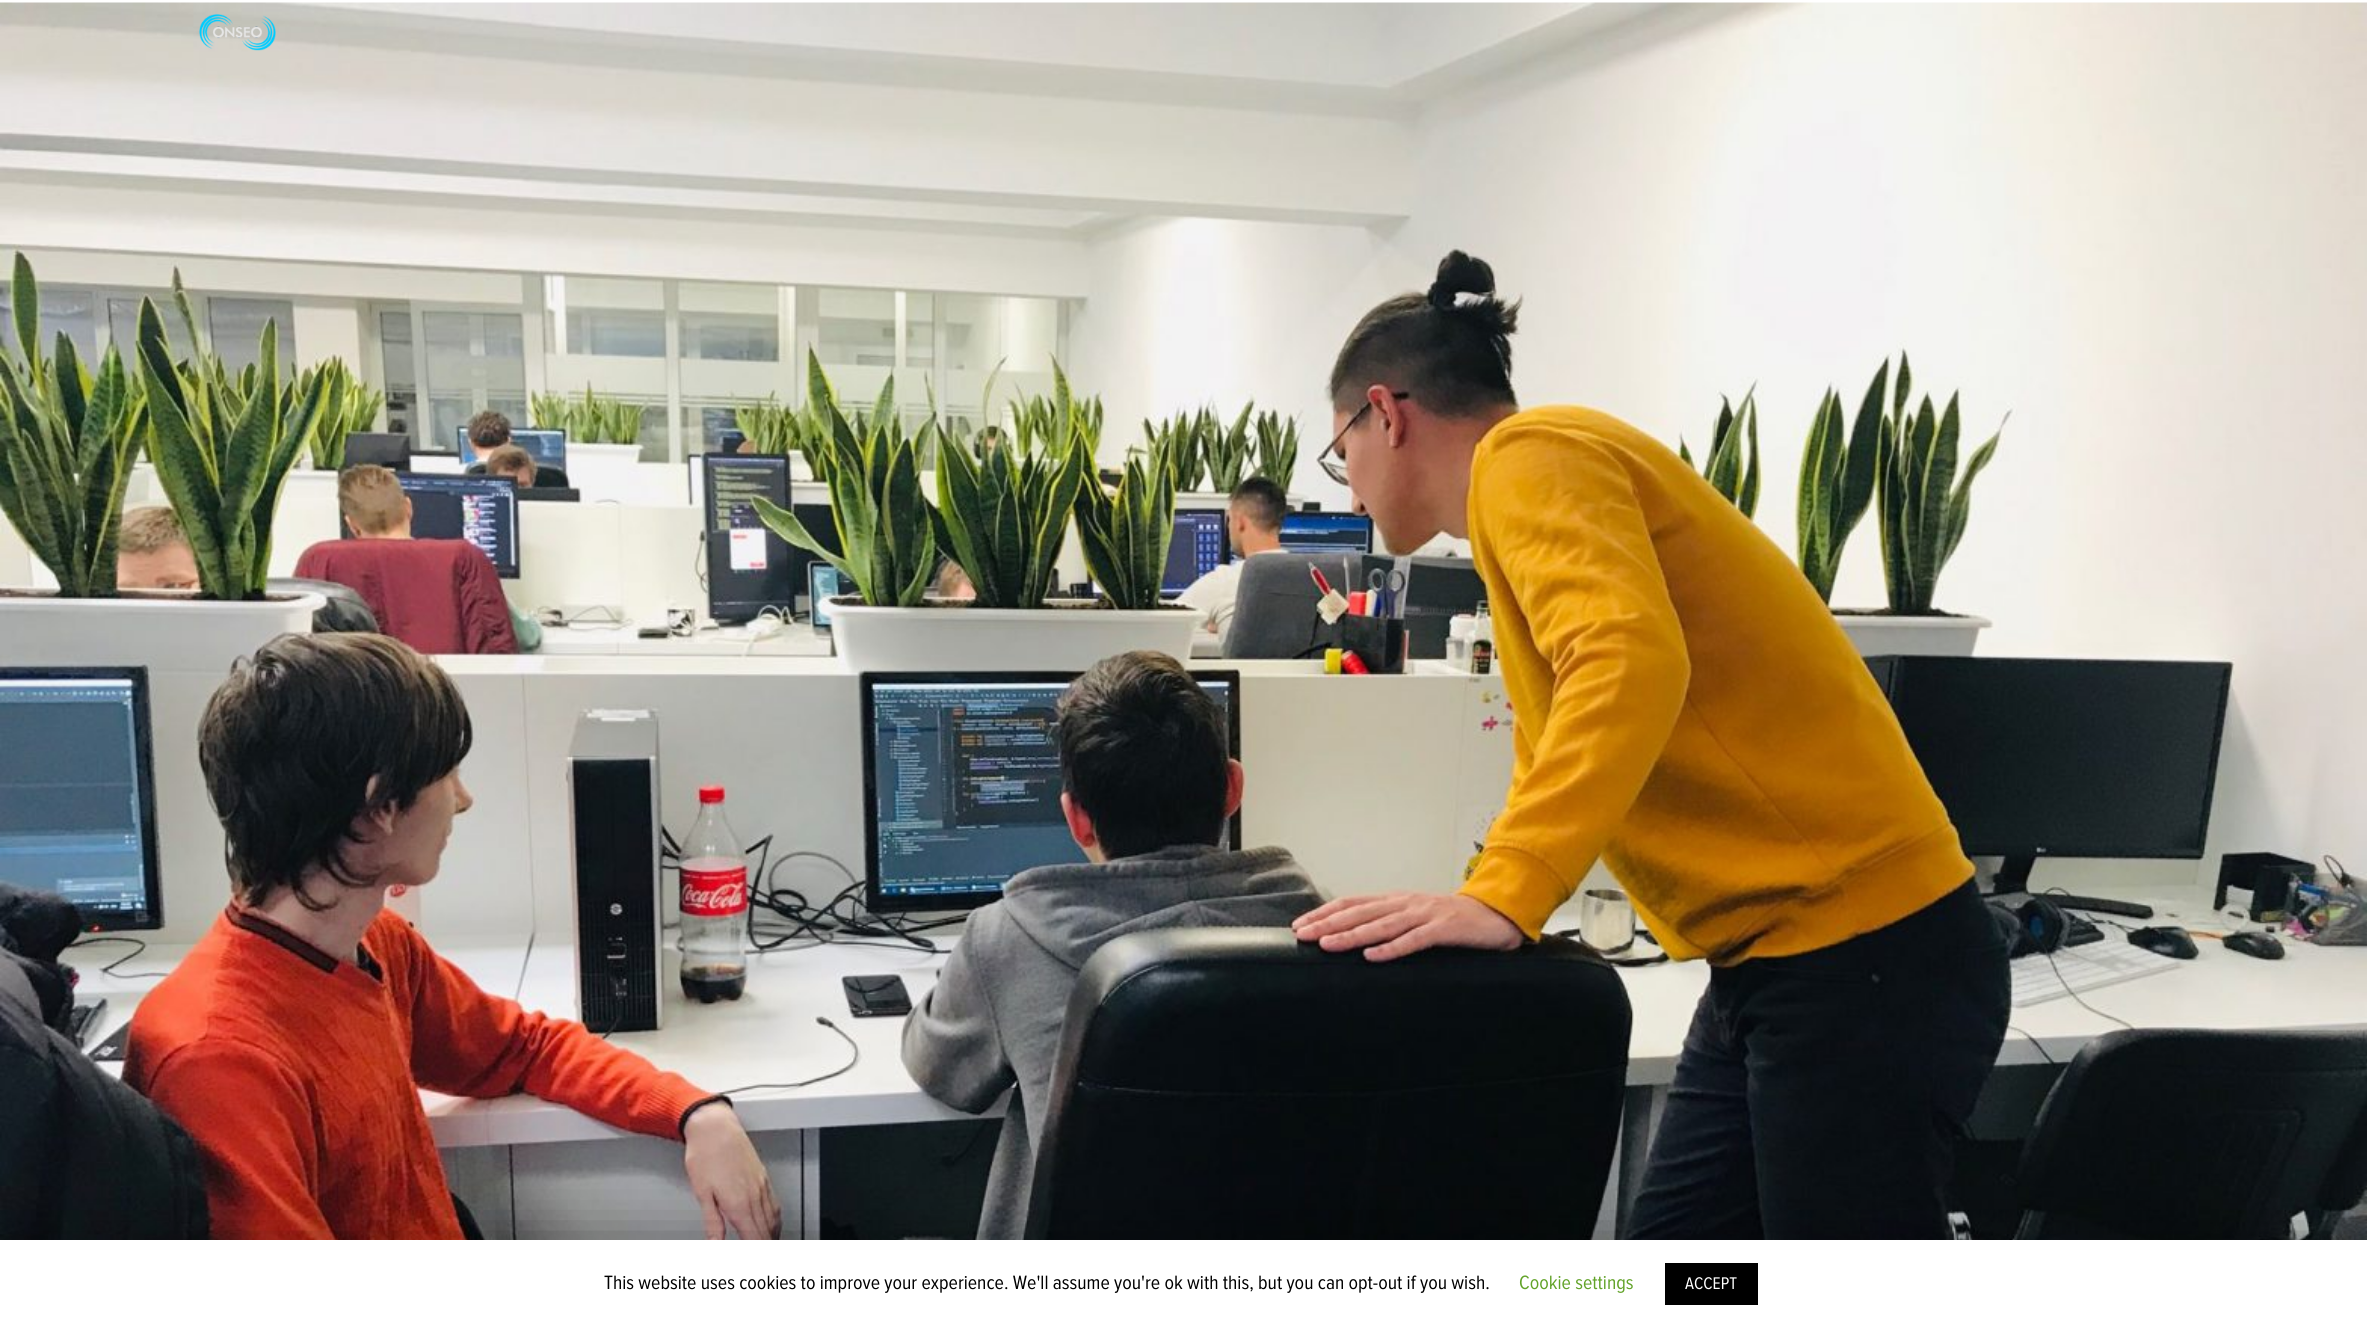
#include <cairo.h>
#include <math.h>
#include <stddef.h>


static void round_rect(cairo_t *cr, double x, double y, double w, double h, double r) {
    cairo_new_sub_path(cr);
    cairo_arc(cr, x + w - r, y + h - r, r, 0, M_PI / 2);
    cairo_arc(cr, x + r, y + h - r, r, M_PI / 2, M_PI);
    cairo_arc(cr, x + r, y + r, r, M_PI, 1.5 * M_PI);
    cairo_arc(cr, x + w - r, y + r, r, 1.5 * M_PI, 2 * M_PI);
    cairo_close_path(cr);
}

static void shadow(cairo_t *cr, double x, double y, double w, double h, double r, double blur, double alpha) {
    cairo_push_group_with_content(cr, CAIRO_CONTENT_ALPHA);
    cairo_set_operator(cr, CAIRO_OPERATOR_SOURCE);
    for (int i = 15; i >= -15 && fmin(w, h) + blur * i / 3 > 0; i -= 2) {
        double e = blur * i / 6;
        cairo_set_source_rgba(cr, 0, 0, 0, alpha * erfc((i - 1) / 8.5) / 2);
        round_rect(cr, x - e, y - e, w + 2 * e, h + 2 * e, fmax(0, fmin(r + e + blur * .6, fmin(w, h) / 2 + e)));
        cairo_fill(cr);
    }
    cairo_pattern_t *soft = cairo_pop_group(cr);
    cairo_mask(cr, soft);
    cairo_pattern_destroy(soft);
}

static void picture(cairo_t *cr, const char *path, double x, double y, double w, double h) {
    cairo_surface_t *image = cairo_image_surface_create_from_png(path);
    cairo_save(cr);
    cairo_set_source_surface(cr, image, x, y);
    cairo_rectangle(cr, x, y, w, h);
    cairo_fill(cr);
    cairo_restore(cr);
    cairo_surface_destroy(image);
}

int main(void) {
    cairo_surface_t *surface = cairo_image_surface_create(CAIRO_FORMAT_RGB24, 2367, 1327);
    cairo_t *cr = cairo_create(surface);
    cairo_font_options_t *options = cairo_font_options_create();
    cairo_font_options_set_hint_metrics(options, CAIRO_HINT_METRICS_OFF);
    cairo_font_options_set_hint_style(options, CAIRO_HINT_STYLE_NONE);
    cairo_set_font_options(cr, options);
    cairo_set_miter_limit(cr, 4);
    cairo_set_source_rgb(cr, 1, 1, 1);
    cairo_paint(cr);
    picture(cr, "img1.png", 0, 2, 2367, 1238);
    picture(cr, "img2.png", 199, 14, 77, 37);
    cairo_set_source_rgb(cr, 0, 0, 0);
    shadow(cr, 0, 1246, 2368, 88, 0, 31, 0.5);
    cairo_set_source_rgb(cr, 1, 1, 1);
    cairo_rectangle(cr, 0, 1240, 2367, 87);
    cairo_fill(cr);
    cairo_select_font_face(cr, "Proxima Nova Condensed", CAIRO_FONT_SLANT_NORMAL, CAIRO_FONT_WEIGHT_NORMAL);
    cairo_set_font_size(cr, 20);
    cairo_set_source_rgb(cr, 0, 0, 0);
    cairo_move_to(cr, 604, 1289);
    cairo_show_text(cr, "This website uses cookies to improve your experience. We'll assume you're ok with this, but you can opt-out if you wish.");
    cairo_set_source_rgb(cr, 0.384, 0.639, 0.161);
    cairo_move_to(cr, 1519, 1289);
    cairo_show_text(cr, "Cookie settings");
    cairo_set_source_rgb(cr, 0, 0, 0);
    cairo_rectangle(cr, 1665, 1263, 93, 42);
    cairo_fill(cr);
    cairo_set_font_size(cr, 17.5);
    cairo_set_source_rgb(cr, 1, 1, 1);
    cairo_move_to(cr, 1685, 1289);
    cairo_show_text(cr, "ACCEPT");
    cairo_surface_write_to_png(surface, "page.png");
    cairo_font_options_destroy(options);
    cairo_destroy(cr);
    cairo_surface_destroy(surface);
    return 0;
}
